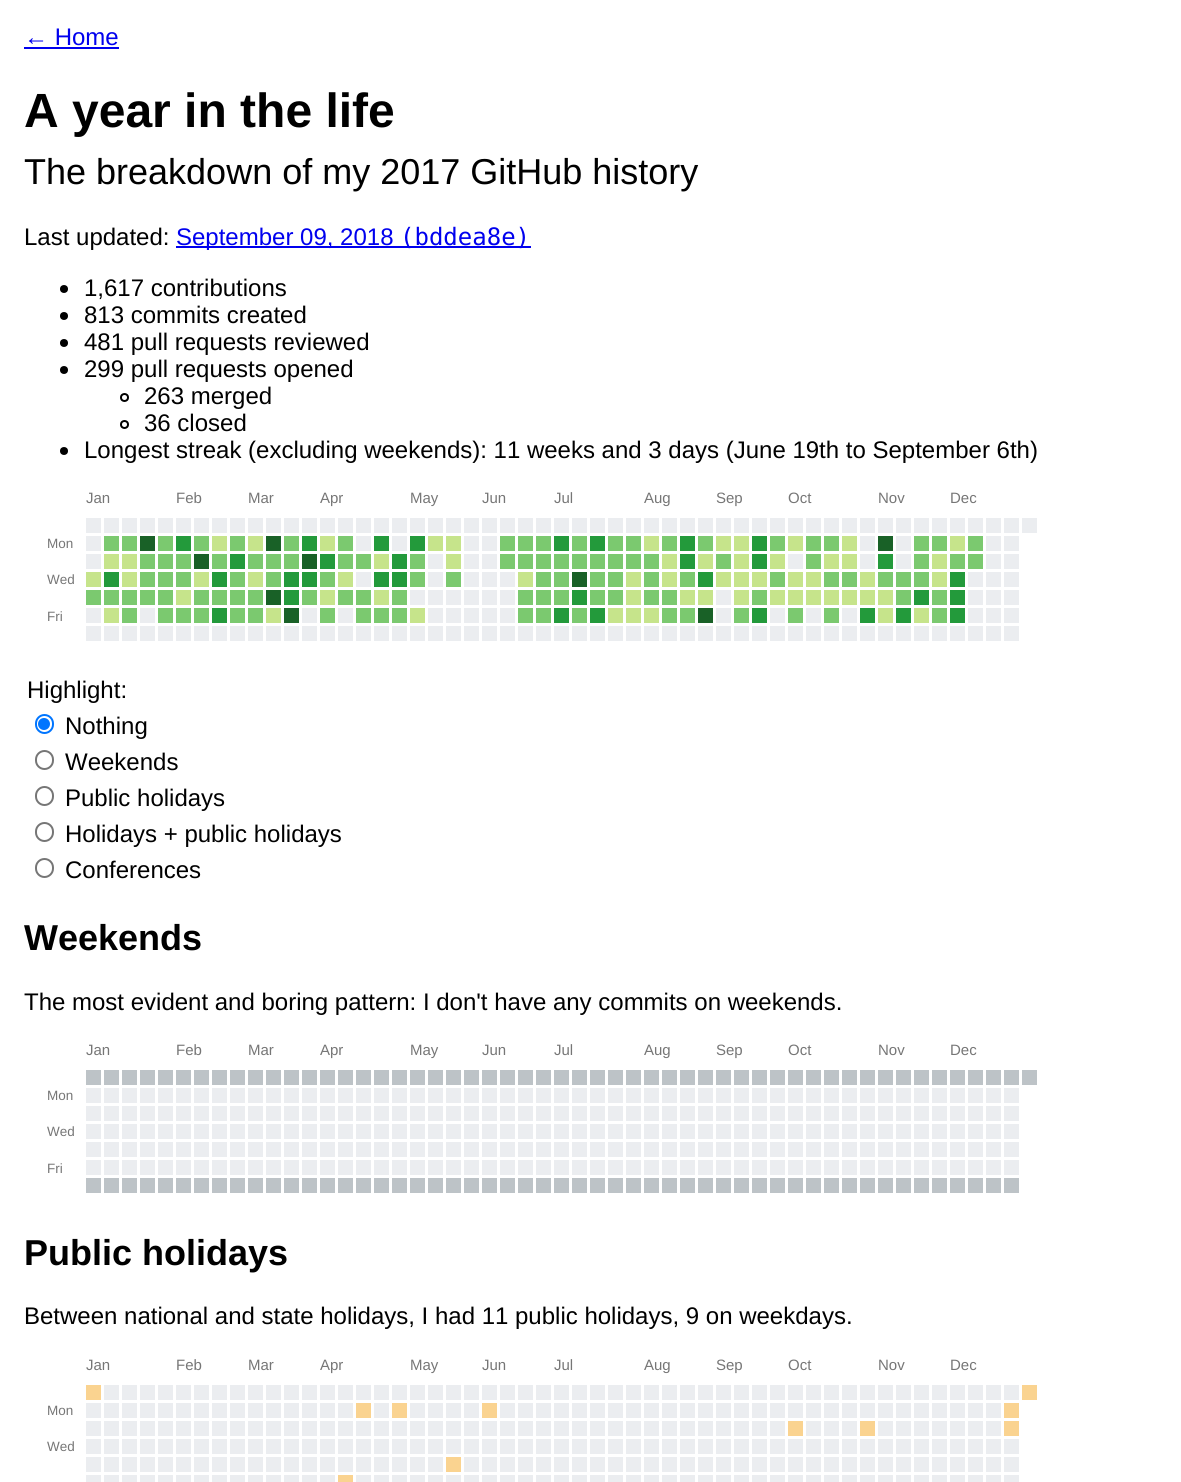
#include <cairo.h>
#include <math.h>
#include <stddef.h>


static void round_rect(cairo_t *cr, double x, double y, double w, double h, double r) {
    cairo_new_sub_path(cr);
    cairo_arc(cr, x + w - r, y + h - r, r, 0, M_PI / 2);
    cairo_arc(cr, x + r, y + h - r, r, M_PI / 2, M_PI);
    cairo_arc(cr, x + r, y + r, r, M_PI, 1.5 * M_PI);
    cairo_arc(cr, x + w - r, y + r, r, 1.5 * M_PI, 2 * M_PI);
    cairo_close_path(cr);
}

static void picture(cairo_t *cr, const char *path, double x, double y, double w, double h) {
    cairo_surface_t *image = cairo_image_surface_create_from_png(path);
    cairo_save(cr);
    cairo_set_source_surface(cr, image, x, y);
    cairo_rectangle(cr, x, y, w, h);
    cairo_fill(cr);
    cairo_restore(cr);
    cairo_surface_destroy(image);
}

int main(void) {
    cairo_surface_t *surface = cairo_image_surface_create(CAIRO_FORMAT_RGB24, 1181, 1482);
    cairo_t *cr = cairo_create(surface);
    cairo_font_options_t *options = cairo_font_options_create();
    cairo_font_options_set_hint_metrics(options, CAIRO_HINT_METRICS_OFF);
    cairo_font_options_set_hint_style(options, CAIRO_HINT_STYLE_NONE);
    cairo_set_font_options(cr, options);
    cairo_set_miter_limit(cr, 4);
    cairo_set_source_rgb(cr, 1, 1, 1);
    cairo_paint(cr);
    cairo_select_font_face(cr, "Liberation Sans", CAIRO_FONT_SLANT_NORMAL, CAIRO_FONT_WEIGHT_NORMAL);
    cairo_set_font_size(cr, 24);
    cairo_set_source_rgb(cr, 0, 0, 0.933);
    cairo_move_to(cr, 24, 45);
    cairo_show_text(cr, "← Home");
    cairo_rectangle(cr, 24, 47, 95, 2);
    cairo_fill(cr);
    cairo_select_font_face(cr, "Liberation Sans", CAIRO_FONT_SLANT_NORMAL, CAIRO_FONT_WEIGHT_BOLD);
    cairo_set_font_size(cr, 48);
    cairo_set_source_rgb(cr, 0, 0, 0);
    cairo_move_to(cr, 24, 127);
    cairo_show_text(cr, "A year in the life");
    cairo_select_font_face(cr, "Liberation Sans", CAIRO_FONT_SLANT_NORMAL, CAIRO_FONT_WEIGHT_NORMAL);
    cairo_set_font_size(cr, 36);
    cairo_move_to(cr, 24, 184);
    cairo_show_text(cr, "The breakdown of my 2017 GitHub history");
    cairo_set_font_size(cr, 24);
    cairo_move_to(cr, 24, 245);
    cairo_show_text(cr, "Last updated:");
    cairo_set_source_rgb(cr, 0, 0, 0.933);
    cairo_rectangle(cr, 176, 246, 355, 2);
    cairo_fill(cr);
    cairo_move_to(cr, 176, 245);
    cairo_show_text(cr, "September 09, 2018");
    cairo_select_font_face(cr, "DejaVu Sans Mono", CAIRO_FONT_SLANT_NORMAL, CAIRO_FONT_WEIGHT_NORMAL);
    cairo_move_to(cr, 400, 245);
    cairo_show_text(cr, "(bddea8e)");
    cairo_set_source_rgb(cr, 0, 0, 0);
    cairo_new_path(cr);
    cairo_arc(cr, 64, 289, 4, 0, 2 * M_PI);
    cairo_fill(cr);
    cairo_select_font_face(cr, "Liberation Sans", CAIRO_FONT_SLANT_NORMAL, CAIRO_FONT_WEIGHT_NORMAL);
    cairo_move_to(cr, 84, 296);
    cairo_show_text(cr, "1,617 contributions");
    cairo_new_path(cr);
    cairo_arc(cr, 64, 316, 4, 0, 2 * M_PI);
    cairo_fill(cr);
    cairo_move_to(cr, 84, 323);
    cairo_show_text(cr, "813 commits created");
    cairo_new_path(cr);
    cairo_arc(cr, 64, 343, 4, 0, 2 * M_PI);
    cairo_fill(cr);
    cairo_move_to(cr, 84, 350);
    cairo_show_text(cr, "481 pull requests reviewed");
    cairo_new_path(cr);
    cairo_arc(cr, 64, 370, 4, 0, 2 * M_PI);
    cairo_fill(cr);
    cairo_move_to(cr, 84, 377);
    cairo_show_text(cr, "299 pull requests opened");
    cairo_new_path(cr);
    cairo_arc(cr, 124.5, 397.5, 3.5, 0, 2 * M_PI);
    cairo_stroke(cr);
    cairo_move_to(cr, 144, 404);
    cairo_show_text(cr, "263 merged");
    cairo_new_path(cr);
    cairo_arc(cr, 124.5, 424.5, 3.5, 0, 2 * M_PI);
    cairo_stroke(cr);
    cairo_move_to(cr, 144, 431);
    cairo_show_text(cr, "36 closed");
    cairo_new_path(cr);
    cairo_arc(cr, 64, 451, 4, 0, 2 * M_PI);
    cairo_fill(cr);
    cairo_move_to(cr, 84, 458);
    cairo_show_text(cr, "Longest streak (excluding weekends): 11 weeks and 3 days (June 19th to September 6th)");
    cairo_set_font_size(cr, 15);
    cairo_set_source_rgb(cr, 0.463, 0.463, 0.463);
    cairo_move_to(cr, 86, 503);
    cairo_show_text(cr, "Jan");
    cairo_move_to(cr, 176, 503);
    cairo_show_text(cr, "Feb");
    cairo_move_to(cr, 248, 503);
    cairo_show_text(cr, "Mar");
    cairo_move_to(cr, 320, 503);
    cairo_show_text(cr, "Apr");
    cairo_move_to(cr, 410, 503);
    cairo_show_text(cr, "May");
    cairo_move_to(cr, 482, 503);
    cairo_show_text(cr, "Jun");
    cairo_move_to(cr, 554, 503);
    cairo_show_text(cr, "Jul");
    cairo_move_to(cr, 644, 503);
    cairo_show_text(cr, "Aug");
    cairo_move_to(cr, 716, 503);
    cairo_show_text(cr, "Sep");
    cairo_move_to(cr, 788, 503);
    cairo_show_text(cr, "Oct");
    cairo_move_to(cr, 878, 503);
    cairo_show_text(cr, "Nov");
    cairo_move_to(cr, 950, 503);
    cairo_show_text(cr, "Dec");
    cairo_set_font_size(cr, 13.5);
    cairo_move_to(cr, 47, 548);
    cairo_show_text(cr, "Mon");
    picture(cr, "img1.png", 86, 518, 951, 123);
    cairo_move_to(cr, 47, 584);
    cairo_show_text(cr, "Wed");
    cairo_move_to(cr, 47, 621);
    cairo_show_text(cr, "Fri");
    cairo_set_font_size(cr, 24);
    cairo_set_source_rgb(cr, 0, 0, 0);
    cairo_move_to(cr, 27, 698);
    cairo_show_text(cr, "Highlight:");
    round_rect(cr, 36, 715, 17, 18, 8.5);
    cairo_set_source_rgb(cr, 0, 0.459, 1);
    cairo_stroke(cr);
    cairo_arc(cr, 44, 724, 6, 0, 2 * M_PI);
    cairo_fill(cr);
    cairo_set_source_rgb(cr, 0, 0, 0);
    cairo_move_to(cr, 65, 734);
    cairo_show_text(cr, "Nothing");
    round_rect(cr, 36, 751, 17, 18, 8.5);
    cairo_set_source_rgb(cr, 0.463, 0.463, 0.463);
    cairo_stroke(cr);
    cairo_set_source_rgb(cr, 0, 0, 0);
    cairo_move_to(cr, 65, 770);
    cairo_show_text(cr, "Weekends");
    round_rect(cr, 36, 787, 17, 18, 8.5);
    cairo_set_source_rgb(cr, 0.463, 0.463, 0.463);
    cairo_stroke(cr);
    cairo_set_source_rgb(cr, 0, 0, 0);
    cairo_move_to(cr, 65, 806);
    cairo_show_text(cr, "Public holidays");
    round_rect(cr, 36, 823, 17, 18, 8.5);
    cairo_set_source_rgb(cr, 0.463, 0.463, 0.463);
    cairo_stroke(cr);
    cairo_set_source_rgb(cr, 0, 0, 0);
    cairo_move_to(cr, 65, 842);
    cairo_show_text(cr, "Holidays + public holidays");
    round_rect(cr, 36, 859, 17, 18, 8.5);
    cairo_set_source_rgb(cr, 0.463, 0.463, 0.463);
    cairo_stroke(cr);
    cairo_set_source_rgb(cr, 0, 0, 0);
    cairo_move_to(cr, 65, 878);
    cairo_show_text(cr, "Conferences");
    cairo_select_font_face(cr, "Liberation Sans", CAIRO_FONT_SLANT_NORMAL, CAIRO_FONT_WEIGHT_BOLD);
    cairo_set_font_size(cr, 36);
    cairo_move_to(cr, 24, 950);
    cairo_show_text(cr, "Weekends");
    cairo_select_font_face(cr, "Liberation Sans", CAIRO_FONT_SLANT_NORMAL, CAIRO_FONT_WEIGHT_NORMAL);
    cairo_set_font_size(cr, 24);
    cairo_move_to(cr, 24, 1010);
    cairo_show_text(cr, "The most evident and boring pattern: I don't have any commits on weekends.");
    cairo_set_font_size(cr, 15);
    cairo_set_source_rgb(cr, 0.463, 0.463, 0.463);
    cairo_move_to(cr, 86, 1055);
    cairo_show_text(cr, "Jan");
    cairo_move_to(cr, 176, 1055);
    cairo_show_text(cr, "Feb");
    cairo_move_to(cr, 248, 1055);
    cairo_show_text(cr, "Mar");
    cairo_move_to(cr, 320, 1055);
    cairo_show_text(cr, "Apr");
    cairo_move_to(cr, 410, 1055);
    cairo_show_text(cr, "May");
    cairo_move_to(cr, 482, 1055);
    cairo_show_text(cr, "Jun");
    cairo_move_to(cr, 554, 1055);
    cairo_show_text(cr, "Jul");
    cairo_move_to(cr, 644, 1055);
    cairo_show_text(cr, "Aug");
    cairo_move_to(cr, 716, 1055);
    cairo_show_text(cr, "Sep");
    cairo_move_to(cr, 788, 1055);
    cairo_show_text(cr, "Oct");
    cairo_move_to(cr, 878, 1055);
    cairo_show_text(cr, "Nov");
    cairo_move_to(cr, 950, 1055);
    cairo_show_text(cr, "Dec");
    cairo_set_font_size(cr, 13.5);
    cairo_move_to(cr, 47, 1100);
    cairo_show_text(cr, "Mon");
    picture(cr, "img2.png", 86, 1070, 951, 123);
    cairo_move_to(cr, 47, 1136);
    cairo_show_text(cr, "Wed");
    cairo_move_to(cr, 47, 1173);
    cairo_show_text(cr, "Fri");
    cairo_select_font_face(cr, "Liberation Sans", CAIRO_FONT_SLANT_NORMAL, CAIRO_FONT_WEIGHT_BOLD);
    cairo_set_font_size(cr, 36);
    cairo_set_source_rgb(cr, 0, 0, 0);
    cairo_move_to(cr, 24, 1265);
    cairo_show_text(cr, "Public holidays");
    cairo_select_font_face(cr, "Liberation Sans", CAIRO_FONT_SLANT_NORMAL, CAIRO_FONT_WEIGHT_NORMAL);
    cairo_set_font_size(cr, 24);
    cairo_move_to(cr, 24, 1324);
    cairo_show_text(cr, "Between national and state holidays, I had 11 public holidays, 9 on weekdays.");
    cairo_set_font_size(cr, 15);
    cairo_set_source_rgb(cr, 0.463, 0.463, 0.463);
    cairo_move_to(cr, 86, 1370);
    cairo_show_text(cr, "Jan");
    cairo_move_to(cr, 176, 1370);
    cairo_show_text(cr, "Feb");
    cairo_move_to(cr, 248, 1370);
    cairo_show_text(cr, "Mar");
    cairo_move_to(cr, 320, 1370);
    cairo_show_text(cr, "Apr");
    cairo_move_to(cr, 410, 1370);
    cairo_show_text(cr, "May");
    cairo_move_to(cr, 482, 1370);
    cairo_show_text(cr, "Jun");
    cairo_move_to(cr, 554, 1370);
    cairo_show_text(cr, "Jul");
    cairo_move_to(cr, 644, 1370);
    cairo_show_text(cr, "Aug");
    cairo_move_to(cr, 716, 1370);
    cairo_show_text(cr, "Sep");
    cairo_move_to(cr, 788, 1370);
    cairo_show_text(cr, "Oct");
    cairo_move_to(cr, 878, 1370);
    cairo_show_text(cr, "Nov");
    cairo_move_to(cr, 950, 1370);
    cairo_show_text(cr, "Dec");
    cairo_set_font_size(cr, 13.5);
    cairo_move_to(cr, 47, 1415);
    cairo_show_text(cr, "Mon");
    picture(cr, "img3.png", 86, 1385, 951, 97);
    cairo_move_to(cr, 47, 1451);
    cairo_show_text(cr, "Wed");
    cairo_surface_write_to_png(surface, "page.png");
    cairo_font_options_destroy(options);
    cairo_destroy(cr);
    cairo_surface_destroy(surface);
    return 0;
}
